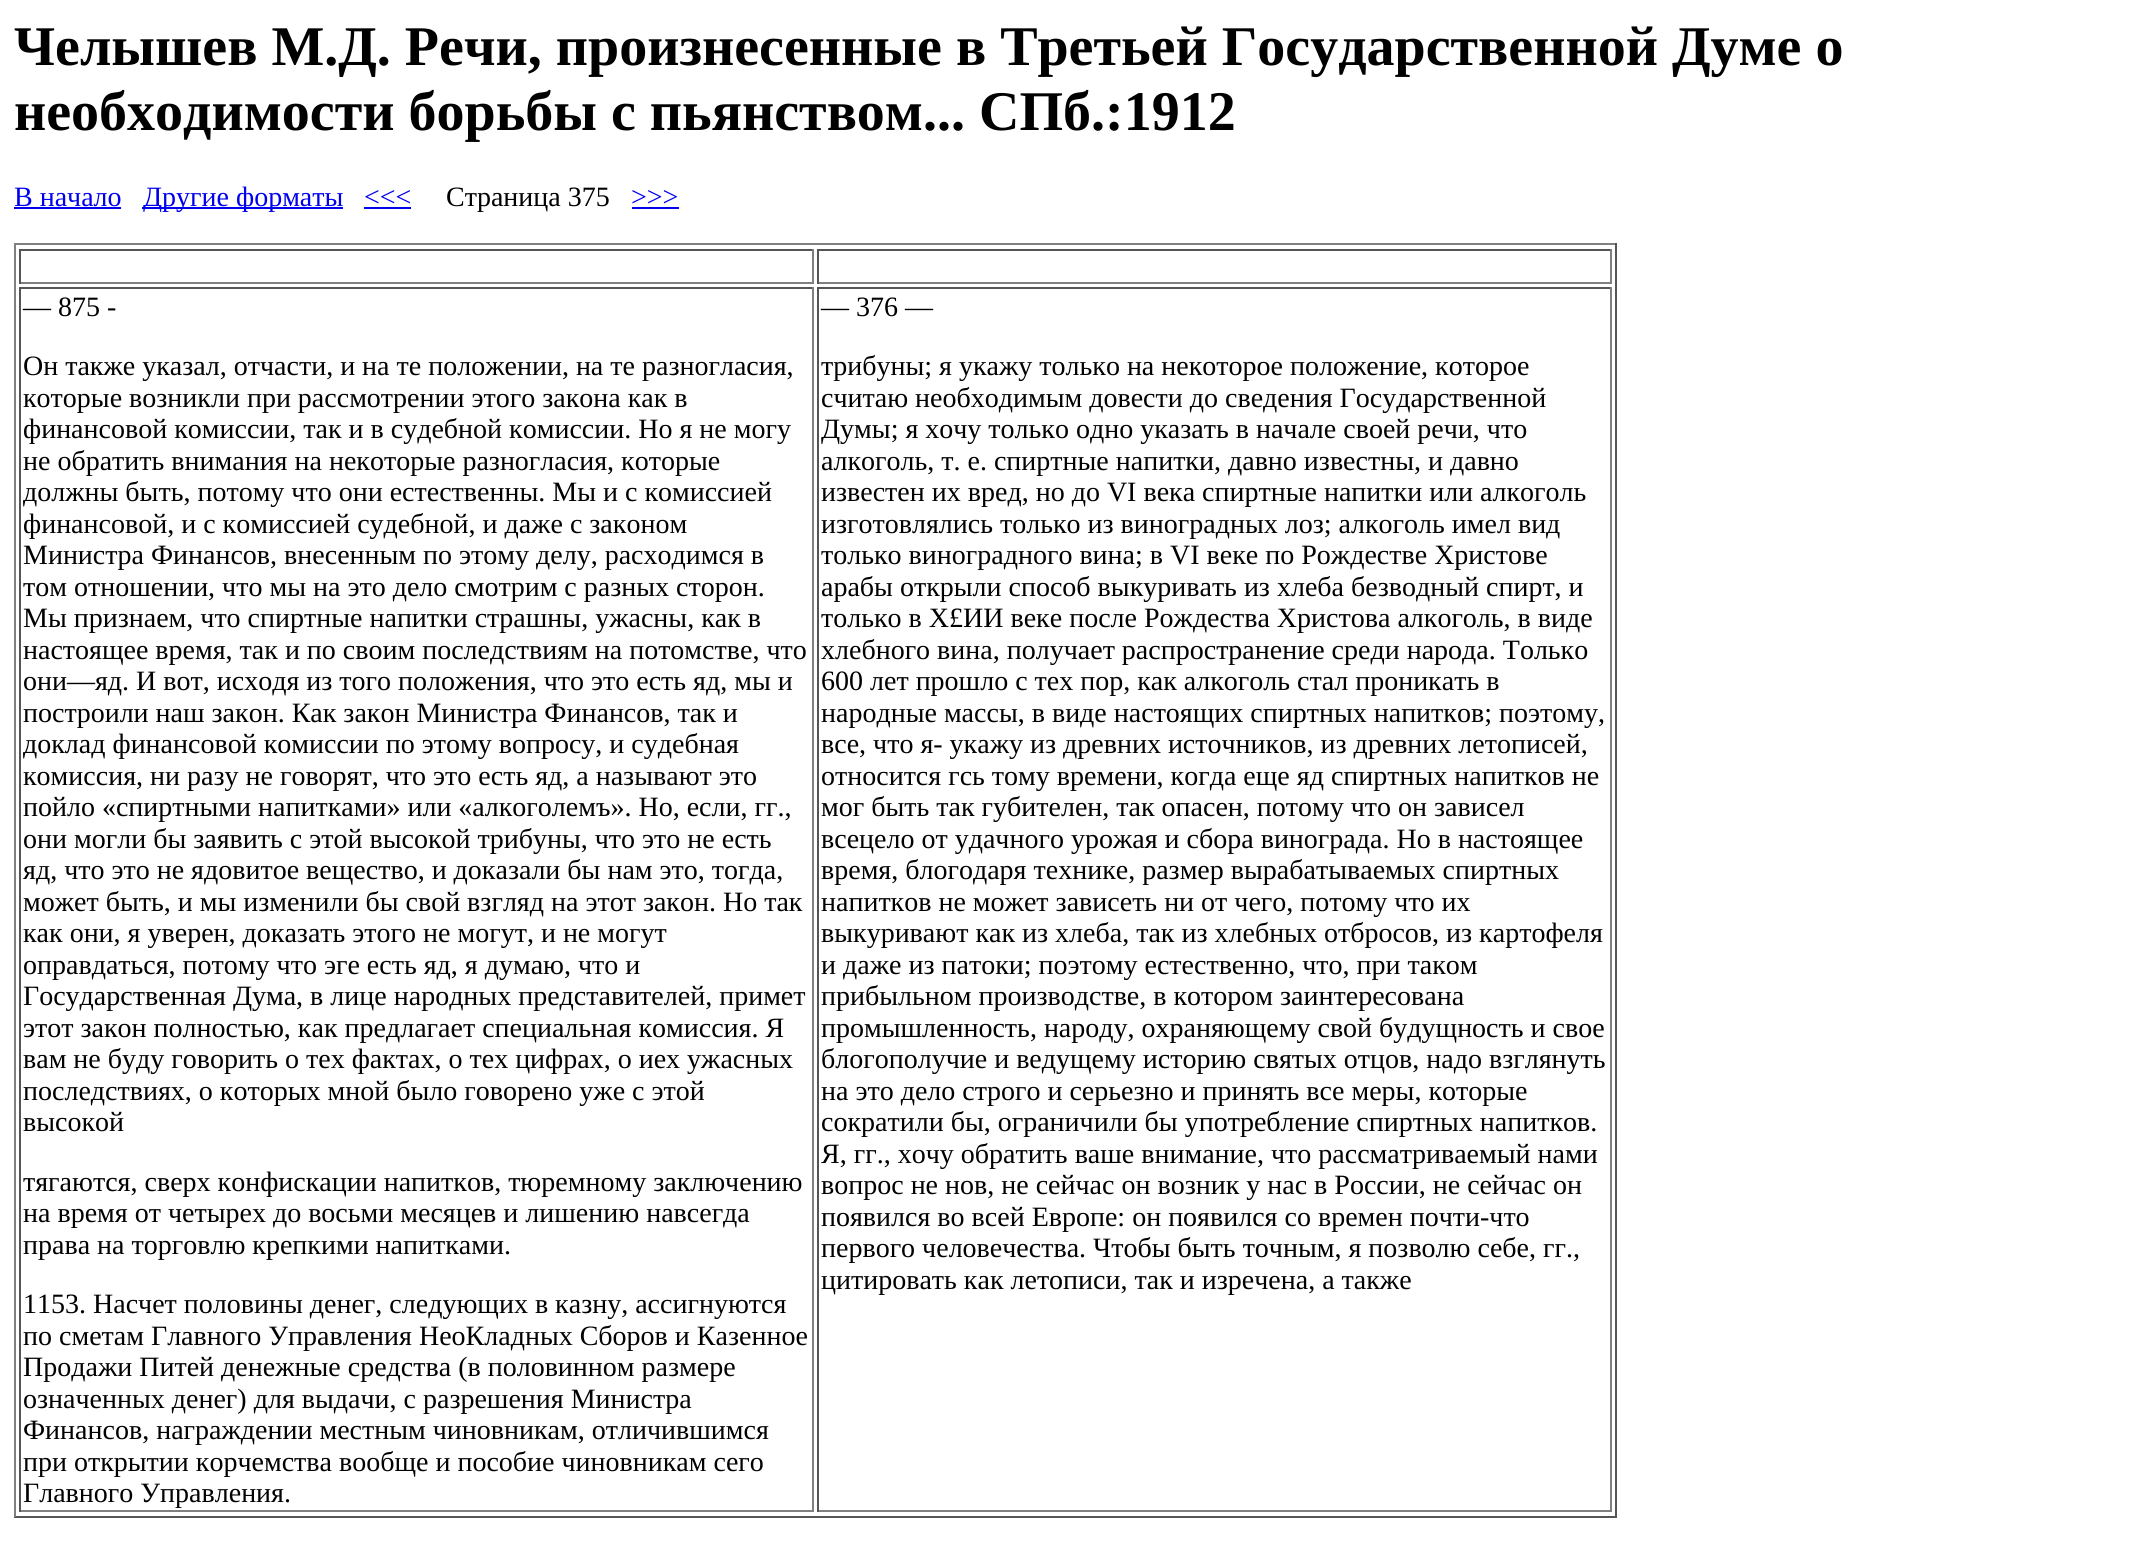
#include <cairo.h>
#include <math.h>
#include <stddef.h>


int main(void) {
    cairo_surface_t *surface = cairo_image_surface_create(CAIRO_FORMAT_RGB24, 2155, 1562);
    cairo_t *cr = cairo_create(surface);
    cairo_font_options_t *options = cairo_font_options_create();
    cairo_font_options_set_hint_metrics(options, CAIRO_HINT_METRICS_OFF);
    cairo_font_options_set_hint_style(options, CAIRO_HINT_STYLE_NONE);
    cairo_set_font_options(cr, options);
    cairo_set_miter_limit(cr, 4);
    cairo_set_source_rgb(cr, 1, 1, 1);
    cairo_paint(cr);
    cairo_select_font_face(cr, "Liberation Serif", CAIRO_FONT_SLANT_NORMAL, CAIRO_FONT_WEIGHT_BOLD);
    cairo_set_font_size(cr, 56);
    cairo_set_source_rgb(cr, 0, 0, 0);
    cairo_move_to(cr, 14, 65);
    cairo_show_text(cr, "Челышев М.Д. Речи, произнесенные в Третьей Государственной Думе о");
    cairo_move_to(cr, 14, 130);
    cairo_show_text(cr, "необходимости борьбы с пьянством... СПб.:1912");
    cairo_select_font_face(cr, "Liberation Serif", CAIRO_FONT_SLANT_NORMAL, CAIRO_FONT_WEIGHT_NORMAL);
    cairo_set_font_size(cr, 28);
    cairo_set_source_rgb(cr, 0, 0, 0.933);
    cairo_move_to(cr, 14, 206);
    cairo_show_text(cr, "В начало");
    cairo_rectangle(cr, 14, 207, 107, 2);
    cairo_fill(cr);
    cairo_rectangle(cr, 142, 207, 201, 2);
    cairo_fill(cr);
    cairo_move_to(cr, 143, 206);
    cairo_show_text(cr, "Другие форматы");
    cairo_move_to(cr, 364, 206);
    cairo_show_text(cr, "<<<");
    cairo_rectangle(cr, 364, 207, 47, 2);
    cairo_fill(cr);
    cairo_set_source_rgb(cr, 0, 0, 0);
    cairo_move_to(cr, 446, 206);
    cairo_show_text(cr, "Страница 375");
    cairo_set_source_rgb(cr, 0, 0, 0.933);
    cairo_move_to(cr, 631, 206);
    cairo_show_text(cr, ">>>");
    cairo_rectangle(cr, 632, 207, 47, 2);
    cairo_fill(cr);
    cairo_set_source_rgb(cr, 0.502, 0.502, 0.502);
    cairo_rectangle(cr, 14, 243, 1603, 2);
    cairo_fill(cr);
    cairo_set_source_rgb(cr, 0.333, 0.333, 0.333);
    cairo_rectangle(cr, 1615, 243, 2, 1274);
    cairo_fill(cr);
    cairo_rectangle(cr, 14, 1516, 1603, 2);
    cairo_fill(cr);
    cairo_set_source_rgb(cr, 0.502, 0.502, 0.502);
    cairo_rectangle(cr, 14, 243, 2, 1274);
    cairo_fill(cr);
    cairo_set_source_rgb(cr, 0.333, 0.333, 0.333);
    cairo_rectangle(cr, 19, 249, 795, 2);
    cairo_fill(cr);
    cairo_set_source_rgb(cr, 0.502, 0.502, 0.502);
    cairo_rectangle(cr, 812, 249, 2, 35);
    cairo_fill(cr);
    cairo_rectangle(cr, 19, 282, 795, 2);
    cairo_fill(cr);
    cairo_set_source_rgb(cr, 0.333, 0.333, 0.333);
    cairo_rectangle(cr, 19, 249, 2, 35);
    cairo_fill(cr);
    cairo_rectangle(cr, 817, 249, 795, 2);
    cairo_fill(cr);
    cairo_set_source_rgb(cr, 0.502, 0.502, 0.502);
    cairo_rectangle(cr, 1610, 249, 2, 35);
    cairo_fill(cr);
    cairo_rectangle(cr, 817, 282, 795, 2);
    cairo_fill(cr);
    cairo_set_source_rgb(cr, 0.333, 0.333, 0.333);
    cairo_rectangle(cr, 817, 249, 2, 35);
    cairo_fill(cr);
    cairo_rectangle(cr, 19, 287, 795, 2);
    cairo_fill(cr);
    cairo_set_source_rgb(cr, 0.502, 0.502, 0.502);
    cairo_rectangle(cr, 812, 287, 2, 1225);
    cairo_fill(cr);
    cairo_rectangle(cr, 19, 1510, 795, 2);
    cairo_fill(cr);
    cairo_set_source_rgb(cr, 0.333, 0.333, 0.333);
    cairo_rectangle(cr, 19, 287, 2, 1225);
    cairo_fill(cr);
    cairo_set_source_rgb(cr, 0, 0, 0);
    cairo_move_to(cr, 23, 316);
    cairo_show_text(cr, "— 875 -");
    cairo_move_to(cr, 23, 375);
    cairo_show_text(cr, "Он также указал, отчасти, и на те положении, на те разногласия,");
    cairo_move_to(cr, 23, 407);
    cairo_show_text(cr, "которые возникли при рассмотрении этого закона как в");
    cairo_move_to(cr, 23, 438);
    cairo_show_text(cr, "финансовой комиссии, так и в судебной комиссии. Но я не могу");
    cairo_move_to(cr, 23, 470);
    cairo_show_text(cr, "не обратить внимания на некоторые разногласия, которые");
    cairo_move_to(cr, 23, 501);
    cairo_show_text(cr, "должны быть, потому что они естественны. Мы и с комиссией");
    cairo_move_to(cr, 23, 533);
    cairo_show_text(cr, "финансовой, и с комиссией судебной, и даже с законом");
    cairo_move_to(cr, 23, 564);
    cairo_show_text(cr, "Министра Финансов, внесенным по этому делу, расходимся в");
    cairo_move_to(cr, 23, 596);
    cairo_show_text(cr, "том отношении, что мы на это дело смотрим с разных сторон.");
    cairo_move_to(cr, 23, 627);
    cairo_show_text(cr, "Мы признаем, что спиртные напитки страшны, ужасны, как в");
    cairo_move_to(cr, 23, 659);
    cairo_show_text(cr, "настоящее время, так и по своим последствиям на потомстве, что");
    cairo_move_to(cr, 23, 690);
    cairo_show_text(cr, "они—яд. И вот, исходя из того положения, что это есть яд, мы и");
    cairo_move_to(cr, 23, 722);
    cairo_show_text(cr, "построили наш закон. Как закон Министра Финансов, так и");
    cairo_move_to(cr, 23, 753);
    cairo_show_text(cr, "доклад финансовой комиссии по этому вопросу, и судебная");
    cairo_move_to(cr, 23, 785);
    cairo_show_text(cr, "комиссия, ни разу не говорят, что это есть яд, а называют это");
    cairo_move_to(cr, 23, 816);
    cairo_show_text(cr, "пойло «спиртными напитками» или «алкоголемъ». Но, если, гг.,");
    cairo_move_to(cr, 23, 848);
    cairo_show_text(cr, "они могли бы заявить с этой высокой трибуны, что это не есть");
    cairo_move_to(cr, 23, 879);
    cairo_show_text(cr, "яд, что это не ядовитое вещество, и доказали бы нам это, тогда,");
    cairo_move_to(cr, 23, 911);
    cairo_show_text(cr, "может быть, и мы изменили бы свой взгляд на этот закон. Но так");
    cairo_move_to(cr, 23, 942);
    cairo_show_text(cr, "как они, я уверен, доказать этого не могут, и не могут");
    cairo_move_to(cr, 23, 974);
    cairo_show_text(cr, "оправдаться, потому что эге есть яд, я думаю, что и");
    cairo_move_to(cr, 23, 1005);
    cairo_show_text(cr, "Государственная Дума, в лице народных представителей, примет");
    cairo_move_to(cr, 23, 1037);
    cairo_show_text(cr, "этот закон полностью, как предлагает специальная комиссия. Я");
    cairo_move_to(cr, 23, 1068);
    cairo_show_text(cr, "вам не буду говорить о тех фактах, о тех цифрах, о иех ужасных");
    cairo_move_to(cr, 23, 1100);
    cairo_show_text(cr, "последствиях, о которых мной было говорено уже с этой");
    cairo_move_to(cr, 23, 1131);
    cairo_show_text(cr, "высокой");
    cairo_move_to(cr, 23, 1191);
    cairo_show_text(cr, "тягаются, сверх конфискации напитков, тюремному заключению");
    cairo_move_to(cr, 23, 1222);
    cairo_show_text(cr, "на время от четырех до восьми месяцев и лишению навсегда");
    cairo_move_to(cr, 23, 1254);
    cairo_show_text(cr, "права на торговлю крепкими напитками.");
    cairo_move_to(cr, 23, 1313);
    cairo_show_text(cr, "1153. Насчет половины денег, следующих в казну, ассигнуются");
    cairo_move_to(cr, 23, 1345);
    cairo_show_text(cr, "по сметам Главного Управления НеоКладных Сборов и Казенное");
    cairo_move_to(cr, 23, 1376);
    cairo_show_text(cr, "Продажи Питей денежные средства (в половинном размере");
    cairo_move_to(cr, 23, 1408);
    cairo_show_text(cr, "означенных денег) для выдачи, с разрешения Министра");
    cairo_move_to(cr, 23, 1439);
    cairo_show_text(cr, "Финансов, награждении местным чиновникам, отличившимся");
    cairo_move_to(cr, 23, 1471);
    cairo_show_text(cr, "при открытии корчемства вообще и пособие чиновникам сего");
    cairo_move_to(cr, 23, 1502);
    cairo_show_text(cr, "Главного Управления.");
    cairo_set_source_rgb(cr, 0.333, 0.333, 0.333);
    cairo_rectangle(cr, 817, 287, 795, 2);
    cairo_fill(cr);
    cairo_set_source_rgb(cr, 0.502, 0.502, 0.502);
    cairo_rectangle(cr, 1610, 287, 2, 1225);
    cairo_fill(cr);
    cairo_rectangle(cr, 817, 1510, 795, 2);
    cairo_fill(cr);
    cairo_set_source_rgb(cr, 0.333, 0.333, 0.333);
    cairo_rectangle(cr, 817, 287, 2, 1225);
    cairo_fill(cr);
    cairo_set_source_rgb(cr, 0, 0, 0);
    cairo_move_to(cr, 821, 316);
    cairo_show_text(cr, "— 376 —");
    cairo_move_to(cr, 821, 375);
    cairo_show_text(cr, "трибуны; я укажу только на некоторое положение, которое");
    cairo_move_to(cr, 821, 407);
    cairo_show_text(cr, "считаю необходимым довести до сведения Государственной");
    cairo_move_to(cr, 821, 438);
    cairo_show_text(cr, "Думы; я хочу только одно указать в начале своей речи, что");
    cairo_move_to(cr, 821, 470);
    cairo_show_text(cr, "алкоголь, т. е. спиртные напитки, давно известны, и давно");
    cairo_move_to(cr, 821, 501);
    cairo_show_text(cr, "известен их вред, но до VI века спиртные напитки или алкоголь");
    cairo_move_to(cr, 821, 533);
    cairo_show_text(cr, "изготовлялись только из виноградных лоз; алкоголь имел вид");
    cairo_move_to(cr, 821, 564);
    cairo_show_text(cr, "только виноградного вина; в VI веке по Рождестве Христове");
    cairo_move_to(cr, 821, 596);
    cairo_show_text(cr, "арабы открыли способ выкуривать из хлеба безводный спирт, и");
    cairo_move_to(cr, 821, 627);
    cairo_show_text(cr, "только в Х£ИИ веке после Рождества Христова алкоголь, в виде");
    cairo_move_to(cr, 821, 659);
    cairo_show_text(cr, "хлебного вина, получает распространение среди народа. Только");
    cairo_move_to(cr, 821, 690);
    cairo_show_text(cr, "600 лет прошло с тех пор, как алкоголь стал проникать в");
    cairo_move_to(cr, 821, 722);
    cairo_show_text(cr, "народные массы, в виде настоящих спиртных напитков; поэтому,");
    cairo_move_to(cr, 821, 753);
    cairo_show_text(cr, "все, что я- укажу из древних источников, из древних летописей,");
    cairo_move_to(cr, 821, 785);
    cairo_show_text(cr, "относится гсь тому времени, когда еще яд спиртных напитков не");
    cairo_move_to(cr, 821, 816);
    cairo_show_text(cr, "мог быть так губителен, так опасен, потому что он зависел");
    cairo_move_to(cr, 821, 848);
    cairo_show_text(cr, "всецело от удачного урожая и сбора винограда. Но в настоящее");
    cairo_move_to(cr, 821, 879);
    cairo_show_text(cr, "время, блогодаря технике, размер вырабатываемых спиртных");
    cairo_move_to(cr, 821, 911);
    cairo_show_text(cr, "напитков не может зависеть ни от чего, потому что их");
    cairo_move_to(cr, 821, 942);
    cairo_show_text(cr, "выкуривают как из хлеба, так из хлебных отбросов, из картофеля");
    cairo_move_to(cr, 821, 974);
    cairo_show_text(cr, "и даже из патоки; поэтому естественно, что, при таком");
    cairo_move_to(cr, 821, 1005);
    cairo_show_text(cr, "прибыльном производстве, в котором заинтересована");
    cairo_move_to(cr, 821, 1037);
    cairo_show_text(cr, "промышленность, народу, охраняющему свой будущность и свое");
    cairo_move_to(cr, 821, 1068);
    cairo_show_text(cr, "блогополучие и ведущему историю святых отцов, надо взглянуть");
    cairo_move_to(cr, 821, 1100);
    cairo_show_text(cr, "на это дело строго и серьезно и принять все меры, которые");
    cairo_move_to(cr, 821, 1131);
    cairo_show_text(cr, "сократили бы, ограничили бы употребление спиртных напитков.");
    cairo_move_to(cr, 821, 1163);
    cairo_show_text(cr, "Я, гг., хочу обратить ваше внимание, что рассматриваемый нами");
    cairo_move_to(cr, 821, 1194);
    cairo_show_text(cr, "вопрос не нов, не сейчас он возник у нас в России, не сейчас он");
    cairo_move_to(cr, 821, 1226);
    cairo_show_text(cr, "появился во всей Европе: он появился со времен почти-что");
    cairo_move_to(cr, 821, 1257);
    cairo_show_text(cr, "первого человечества. Чтобы быть точным, я позволю себе, гг.,");
    cairo_move_to(cr, 821, 1289);
    cairo_show_text(cr, "цитировать как летописи, так и изречена, а также");
    cairo_surface_write_to_png(surface, "page.png");
    cairo_font_options_destroy(options);
    cairo_destroy(cr);
    cairo_surface_destroy(surface);
    return 0;
}
